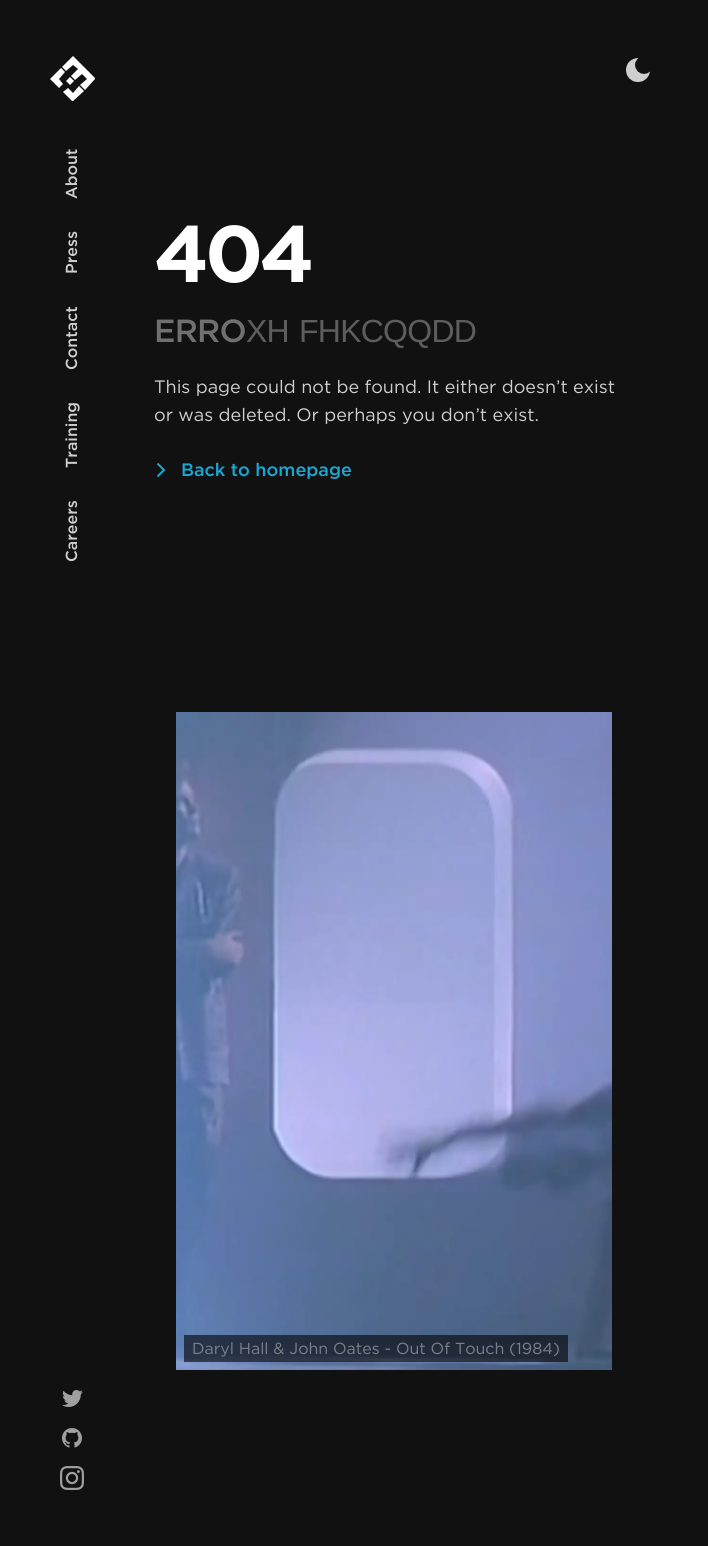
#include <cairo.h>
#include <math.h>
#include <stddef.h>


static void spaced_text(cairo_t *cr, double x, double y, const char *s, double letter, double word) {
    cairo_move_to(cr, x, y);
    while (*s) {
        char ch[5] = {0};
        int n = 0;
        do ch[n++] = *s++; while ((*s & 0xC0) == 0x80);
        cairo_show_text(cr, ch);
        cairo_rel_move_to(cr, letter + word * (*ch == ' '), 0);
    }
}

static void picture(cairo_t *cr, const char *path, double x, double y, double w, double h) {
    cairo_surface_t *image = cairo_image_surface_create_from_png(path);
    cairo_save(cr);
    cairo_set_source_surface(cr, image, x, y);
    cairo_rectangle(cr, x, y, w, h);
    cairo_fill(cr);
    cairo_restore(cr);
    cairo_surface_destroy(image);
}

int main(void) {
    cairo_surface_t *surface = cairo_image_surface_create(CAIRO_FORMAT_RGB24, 708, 1546);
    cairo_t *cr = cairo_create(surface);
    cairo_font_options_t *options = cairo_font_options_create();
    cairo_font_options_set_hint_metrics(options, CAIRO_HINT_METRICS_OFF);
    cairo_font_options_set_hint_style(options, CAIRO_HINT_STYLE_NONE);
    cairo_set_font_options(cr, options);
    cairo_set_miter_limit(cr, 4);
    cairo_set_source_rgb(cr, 0.067, 0.067, 0.067);
    cairo_paint(cr);
    cairo_set_source_rgb(cr, 1, 1, 1);
    cairo_set_fill_rule(cr, CAIRO_FILL_RULE_EVEN_ODD);
    cairo_new_path(cr);
    cairo_move_to(cr, 84, 91);
    cairo_line_to(cr, 73, 101);
    cairo_line_to(cr, 72, 101);
    cairo_line_to(cr, 63, 92);
    cairo_line_to(cr, 68, 88);
    cairo_line_to(cr, 73, 93);
    cairo_line_to(cr, 79, 86);
    cairo_close_path(cr);
    cairo_move_to(cr, 73, 56);
    cairo_line_to(cr, 95, 78);
    cairo_line_to(cr, 95, 79);
    cairo_line_to(cr, 85, 90);
    cairo_line_to(cr, 80, 85);
    cairo_line_to(cr, 87, 79);
    cairo_line_to(cr, 82, 74);
    cairo_line_to(cr, 75, 80);
    cairo_line_to(cr, 71, 76);
    cairo_line_to(cr, 78, 69);
    cairo_line_to(cr, 73, 65);
    cairo_line_to(cr, 66, 71);
    cairo_line_to(cr, 62, 67);
    cairo_close_path(cr);
    cairo_move_to(cr, 65, 72);
    cairo_line_to(cr, 61, 68);
    cairo_line_to(cr, 50, 79);
    cairo_line_to(cr, 59, 88);
    cairo_line_to(cr, 63, 84);
    cairo_line_to(cr, 59, 79);
    cairo_close_path(cr);
    cairo_move_to(cr, 74, 81);
    cairo_line_to(cr, 70, 77);
    cairo_line_to(cr, 66, 81);
    cairo_line_to(cr, 70, 85);
    cairo_close_path(cr);
    cairo_fill(cr);
    picture(cr, "img1.png", 626, 58, 24, 24);
    cairo_select_font_face(cr, "Gotham Medium", CAIRO_FONT_SLANT_NORMAL, CAIRO_FONT_WEIGHT_NORMAL);
    cairo_set_font_size(cr, 16);
    cairo_set_source_rgb(cr, 0.812, 0.812, 0.812);
    cairo_save(cr);
    cairo_translate(cr, 77, 199);
    cairo_rotate(cr, -90 * M_PI / 180);
    cairo_move_to(cr, 0, 0);
    cairo_show_text(cr, "About");
    cairo_restore(cr);
    cairo_save(cr);
    cairo_translate(cr, 77, 274);
    cairo_rotate(cr, -90 * M_PI / 180);
    cairo_move_to(cr, 0, 0);
    cairo_show_text(cr, "Press");
    cairo_restore(cr);
    cairo_save(cr);
    cairo_translate(cr, 77, 370);
    cairo_rotate(cr, -90 * M_PI / 180);
    cairo_move_to(cr, 0, 0);
    cairo_show_text(cr, "Contact");
    cairo_restore(cr);
    cairo_save(cr);
    cairo_translate(cr, 77, 468);
    cairo_rotate(cr, -90 * M_PI / 180);
    cairo_move_to(cr, 0, 0);
    cairo_show_text(cr, "Training");
    cairo_restore(cr);
    cairo_save(cr);
    cairo_translate(cr, 77, 562);
    cairo_rotate(cr, -90 * M_PI / 180);
    cairo_move_to(cr, 0, 0);
    cairo_show_text(cr, "Careers");
    cairo_restore(cr);
    picture(cr, "img2.png", 62, 1390, 21, 17);
    picture(cr, "img3.png", 62, 1428, 20, 20);
    picture(cr, "img4.png", 60, 1466, 24, 24);
    cairo_select_font_face(cr, "Gotham", CAIRO_FONT_SLANT_NORMAL, CAIRO_FONT_WEIGHT_BOLD);
    cairo_set_font_size(cr, 80);
    cairo_set_source_rgb(cr, 1, 1, 1);
    spaced_text(cr, 154, 282, "404", -4, 0);
    cairo_select_font_face(cr, "Gotham Medium", CAIRO_FONT_SLANT_NORMAL, CAIRO_FONT_WEIGHT_NORMAL);
    cairo_set_font_size(cr, 32);
    cairo_set_source_rgb(cr, 0.439, 0.439, 0.439);
    spaced_text(cr, 154, 342, "ERRO", -0.75, 0);
    cairo_select_font_face(cr, "Liberation Sans", CAIRO_FONT_SLANT_NORMAL, CAIRO_FONT_WEIGHT_NORMAL);
    cairo_set_source_rgb(cr, 0.365, 0.365, 0.365);
    spaced_text(cr, 246, 342, "XH", -0.75, 0);
    spaced_text(cr, 299, 342, "FHKCQQDD", -0.75, 0);
    cairo_select_font_face(cr, "Gotham", CAIRO_FONT_SLANT_NORMAL, CAIRO_FONT_WEIGHT_NORMAL);
    cairo_set_font_size(cr, 18);
    cairo_set_source_rgb(cr, 0.812, 0.812, 0.812);
    cairo_move_to(cr, 154, 393);
    cairo_show_text(cr, "This page could not be found. It either doesn’t exist");
    cairo_move_to(cr, 154, 421);
    cairo_show_text(cr, "or was deleted. Or perhaps you don’t exist.");
    picture(cr, "img5.png", 156, 462, 10, 16);
    cairo_select_font_face(cr, "Gotham Medium", CAIRO_FONT_SLANT_NORMAL, CAIRO_FONT_WEIGHT_NORMAL);
    cairo_set_source_rgb(cr, 0.098, 0.655, 0.831);
    cairo_move_to(cr, 181, 476);
    cairo_show_text(cr, "Back to homepage");
    picture(cr, "img6.png", 176, 712, 436, 658);
    cairo_set_source_rgba(cr, 0, 0, 0, 0.6);
    cairo_rectangle(cr, 184, 1335, 384, 27);
    cairo_fill(cr);
    cairo_select_font_face(cr, "Gotham", CAIRO_FONT_SLANT_NORMAL, CAIRO_FONT_WEIGHT_NORMAL);
    cairo_set_font_size(cr, 16);
    cairo_set_source_rgb(cr, 0.482, 0.502, 0.541);
    cairo_move_to(cr, 192, 1354);
    cairo_show_text(cr, "Daryl Hall & John Oates - Out Of Touch (1984)");
    cairo_surface_write_to_png(surface, "page.png");
    cairo_font_options_destroy(options);
    cairo_destroy(cr);
    cairo_surface_destroy(surface);
    return 0;
}
